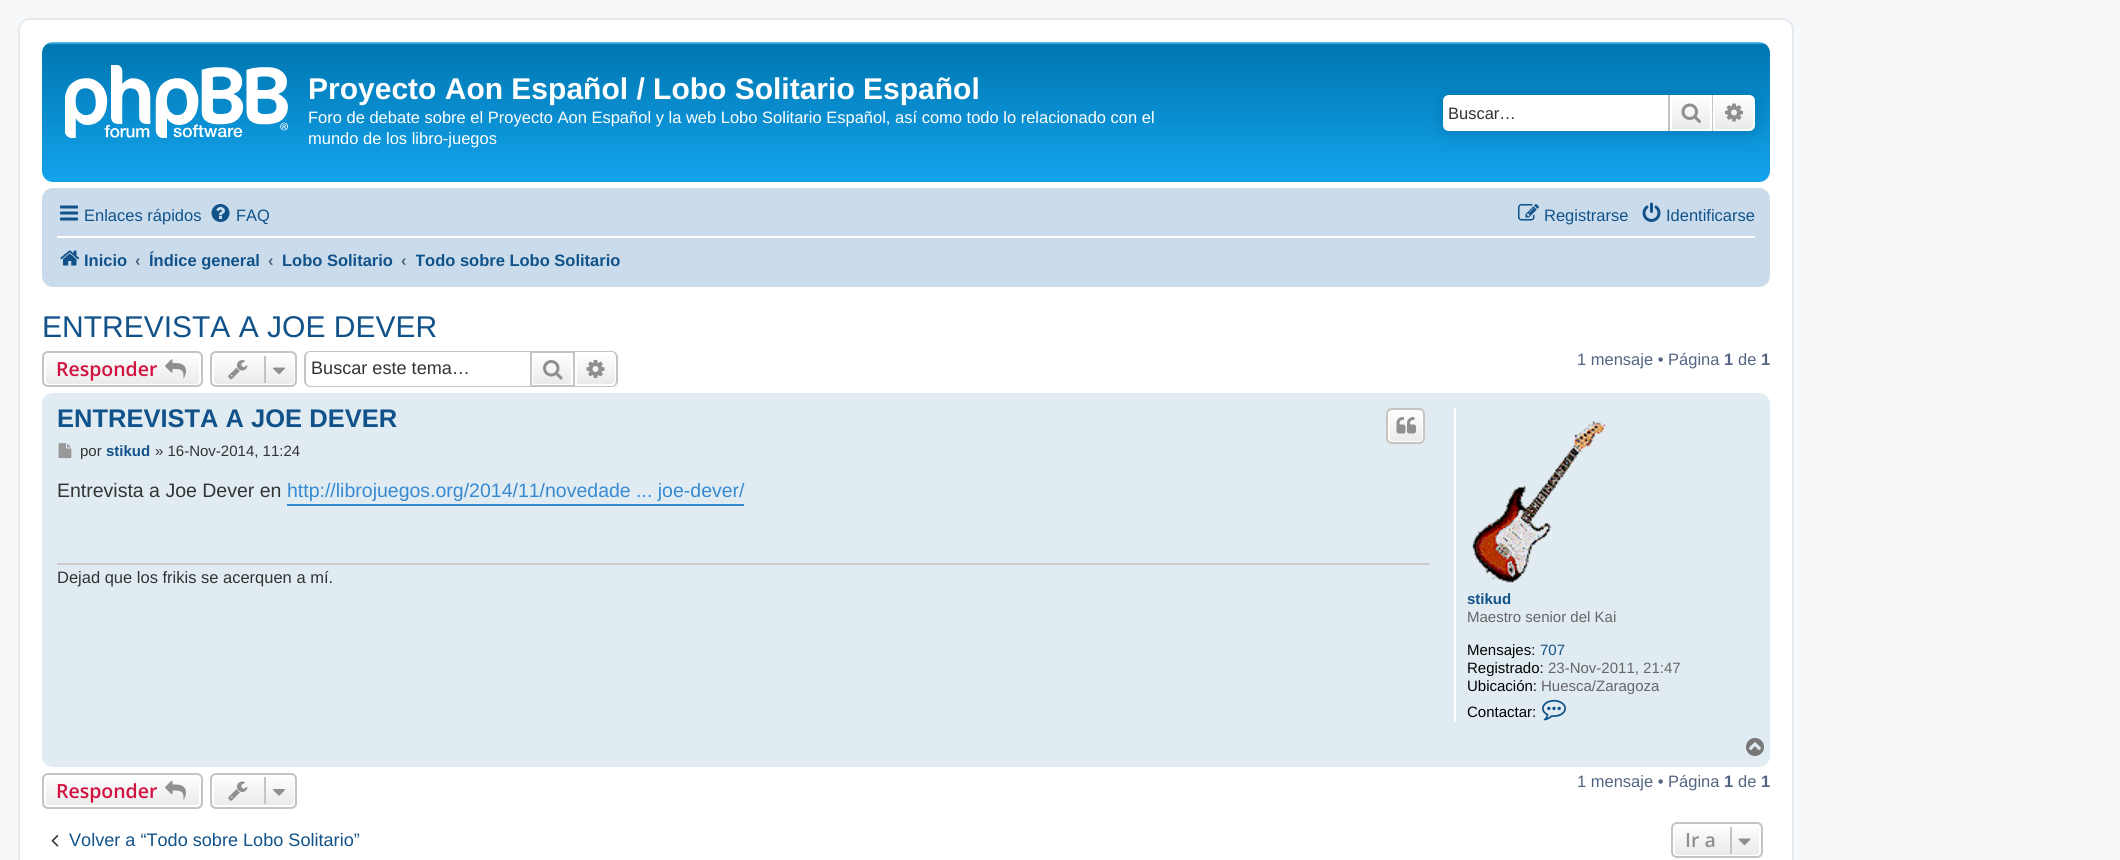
#include <cairo.h>
#include <math.h>
#include <stddef.h>


static void round_rect(cairo_t *cr, double x, double y, double w, double h, double r) {
    cairo_new_sub_path(cr);
    cairo_arc(cr, x + w - r, y + h - r, r, 0, M_PI / 2);
    cairo_arc(cr, x + r, y + h - r, r, M_PI / 2, M_PI);
    cairo_arc(cr, x + r, y + r, r, M_PI, 1.5 * M_PI);
    cairo_arc(cr, x + w - r, y + r, r, 1.5 * M_PI, 2 * M_PI);
    cairo_close_path(cr);
}

static void shadow(cairo_t *cr, double x, double y, double w, double h, double r, double blur, double alpha) {
    cairo_push_group_with_content(cr, CAIRO_CONTENT_ALPHA);
    cairo_set_operator(cr, CAIRO_OPERATOR_SOURCE);
    for (int i = 15; i >= -15 && fmin(w, h) + blur * i / 3 > 0; i -= 2) {
        double e = blur * i / 6;
        cairo_set_source_rgba(cr, 0, 0, 0, alpha * erfc((i - 1) / 8.5) / 2);
        round_rect(cr, x - e, y - e, w + 2 * e, h + 2 * e, fmax(0, fmin(r + e + blur * .6, fmin(w, h) / 2 + e)));
        cairo_fill(cr);
    }
    cairo_pattern_t *soft = cairo_pop_group(cr);
    cairo_mask(cr, soft);
    cairo_pattern_destroy(soft);
}

static void picture(cairo_t *cr, const char *path, double x, double y, double w, double h) {
    cairo_surface_t *image = cairo_image_surface_create_from_png(path);
    cairo_save(cr);
    cairo_set_source_surface(cr, image, x, y);
    cairo_rectangle(cr, x, y, w, h);
    cairo_fill(cr);
    cairo_restore(cr);
    cairo_surface_destroy(image);
}

int main(void) {
    cairo_surface_t *surface = cairo_image_surface_create(CAIRO_FORMAT_RGB24, 2120, 860);
    cairo_t *cr = cairo_create(surface);
    cairo_font_options_t *options = cairo_font_options_create();
    cairo_font_options_set_hint_metrics(options, CAIRO_HINT_METRICS_OFF);
    cairo_font_options_set_hint_style(options, CAIRO_HINT_STYLE_NONE);
    cairo_set_font_options(cr, options);
    cairo_set_miter_limit(cr, 4);
    cairo_pattern_t *gradient;
    cairo_set_source_rgb(cr, 0.961, 0.969, 0.98);
    cairo_paint(cr);
    cairo_set_source_rgb(cr, 1, 1, 1);
    round_rect(cr, 19, 19, 1774, 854, 11);
    cairo_fill_preserve(cr);
    cairo_set_source_rgb(cr, 0.902, 0.914, 0.929);
    cairo_stroke(cr);
    gradient = cairo_pattern_create_linear(906, 42, 906, 182);
    cairo_pattern_add_color_stop_rgba(gradient, 0, 0.416, 0.808, 1, 1);
    cairo_pattern_add_color_stop_rgba(gradient, 0.02, 0, 0.463, 0.694, 1);
    cairo_pattern_add_color_stop_rgba(gradient, 0.99, 0.071, 0.639, 0.922, 1);
    cairo_pattern_add_color_stop_rgba(gradient, 1, 0.071, 0.639, 0.922, 1);
    cairo_set_source(cr, gradient);
    cairo_pattern_destroy(gradient);
    round_rect(cr, 42, 42, 1728, 140, 11);
    cairo_fill(cr);
    picture(cr, "img1.png", 65, 65, 223, 73);
    cairo_select_font_face(cr, "Liberation Sans", CAIRO_FONT_SLANT_NORMAL, CAIRO_FONT_WEIGHT_BOLD);
    cairo_set_font_size(cr, 30);
    cairo_set_source_rgb(cr, 1, 1, 1);
    cairo_move_to(cr, 308, 99);
    cairo_show_text(cr, "Proyecto Aon Español / Lobo Solitario Español");
    cairo_select_font_face(cr, "Liberation Sans", CAIRO_FONT_SLANT_NORMAL, CAIRO_FONT_WEIGHT_NORMAL);
    cairo_set_font_size(cr, 16.5);
    cairo_move_to(cr, 308, 123);
    cairo_show_text(cr, "Foro de debate sobre el Proyecto Aon Español y la web Lobo Solitario Español, así como todo lo relacionado con el");
    cairo_move_to(cr, 308, 144);
    cairo_show_text(cr, "mundo de los libro-juegos");
    cairo_set_source_rgb(cr, 0, 0.459, 0.69);
    shadow(cr, 1443, 95, 312, 36, 6, 7.5, 1);
    cairo_set_source_rgb(cr, 1, 1, 1);
    cairo_new_path(cr);
    cairo_move_to(cr, 1449, 95);
    cairo_line_to(cr, 1668, 95);
    cairo_line_to(cr, 1668, 131);
    cairo_line_to(cr, 1449, 131);
    cairo_curve_to(cr, 1445.5, 131, 1443, 128.5, 1443, 125);
    cairo_line_to(cr, 1443, 101);
    cairo_curve_to(cr, 1443, 97.5, 1445.5, 95, 1449, 95);
    cairo_close_path(cr);
    cairo_fill(cr);
    cairo_set_source_rgb(cr, 0.2, 0.2, 0.2);
    cairo_move_to(cr, 1448, 119);
    cairo_show_text(cr, "Buscar…");
    gradient = cairo_pattern_create_linear(1691, 95, 1691, 131);
    cairo_pattern_add_color_stop_rgba(gradient, 0, 1, 1, 1, 1);
    cairo_pattern_add_color_stop_rgba(gradient, 1, 0.914, 0.914, 0.914, 1);
    cairo_set_source(cr, gradient);
    cairo_pattern_destroy(gradient);
    cairo_rectangle(cr, 1672, 97, 38, 32);
    cairo_fill(cr);
    cairo_rectangle(cr, 1671, 96, 40, 34);
    cairo_set_source_rgb(cr, 1, 1, 1);
    cairo_stroke(cr);
    cairo_set_source_rgb(cr, 0.78, 0.765, 0.749);
    cairo_rectangle(cr, 1712, 95, 1, 36);
    cairo_fill(cr);
    cairo_rectangle(cr, 1668, 95, 2, 36);
    cairo_fill(cr);
    picture(cr, "img2.png", 1681, 103, 20, 20);
    gradient = cairo_pattern_create_linear(1734, 95, 1734, 131);
    cairo_pattern_add_color_stop_rgba(gradient, 0, 1, 1, 1, 1);
    cairo_pattern_add_color_stop_rgba(gradient, 1, 0.914, 0.914, 0.914, 1);
    cairo_set_source(cr, gradient);
    cairo_pattern_destroy(gradient);
    cairo_new_path(cr);
    cairo_move_to(cr, 1714, 96);
    cairo_line_to(cr, 1749, 96);
    cairo_curve_to(cr, 1752, 96, 1754, 98, 1754, 101);
    cairo_line_to(cr, 1754, 125);
    cairo_curve_to(cr, 1754, 128, 1752, 130, 1749, 130);
    cairo_line_to(cr, 1714, 130);
    cairo_close_path(cr);
    cairo_fill_preserve(cr);
    cairo_set_source_rgb(cr, 1, 1, 1);
    cairo_stroke(cr);
    picture(cr, "img3.png", 1725, 103, 18, 19);
    cairo_set_source_rgb(cr, 0.792, 0.863, 0.922);
    round_rect(cr, 42, 188, 1728, 99, 11);
    cairo_fill(cr);
    picture(cr, "img4.png", 60, 205, 18, 16);
    cairo_set_source_rgb(cr, 0.063, 0.322, 0.537);
    cairo_move_to(cr, 84, 221);
    cairo_show_text(cr, "Enlaces rápidos");
    picture(cr, "img5.png", 211, 204, 19, 18);
    cairo_move_to(cr, 236, 221);
    cairo_show_text(cr, "FAQ");
    picture(cr, "img6.png", 1518, 204, 21, 17);
    cairo_move_to(cr, 1544, 221);
    cairo_show_text(cr, "Registrarse");
    picture(cr, "img7.png", 1642, 202, 19, 20);
    cairo_move_to(cr, 1666, 221);
    cairo_show_text(cr, "Identificarse");
    cairo_set_source_rgb(cr, 1, 1, 1);
    cairo_rectangle(cr, 57, 236, 1698, 2);
    cairo_fill(cr);
    picture(cr, "img8.png", 60, 250, 20, 16);
    cairo_select_font_face(cr, "Liberation Sans", CAIRO_FONT_SLANT_NORMAL, CAIRO_FONT_WEIGHT_BOLD);
    cairo_set_source_rgb(cr, 0.063, 0.322, 0.537);
    cairo_move_to(cr, 84, 266);
    cairo_show_text(cr, "Inicio");
    cairo_set_source_rgb(cr, 0.325, 0.392, 0.51);
    cairo_move_to(cr, 135, 266);
    cairo_show_text(cr, "‹");
    cairo_set_source_rgb(cr, 0.063, 0.322, 0.537);
    cairo_move_to(cr, 149, 266);
    cairo_show_text(cr, "Índice general");
    cairo_set_source_rgb(cr, 0.325, 0.392, 0.51);
    cairo_move_to(cr, 268, 266);
    cairo_show_text(cr, "‹");
    cairo_set_source_rgb(cr, 0.063, 0.322, 0.537);
    cairo_move_to(cr, 282, 266);
    cairo_show_text(cr, "Lobo Solitario");
    cairo_set_source_rgb(cr, 0.325, 0.392, 0.51);
    cairo_move_to(cr, 401, 266);
    cairo_show_text(cr, "‹");
    cairo_save(cr);
    cairo_rectangle(cr, 416, 242, 205, 37);
    cairo_clip(cr);
    cairo_set_source_rgb(cr, 0.063, 0.322, 0.537);
    cairo_move_to(cr, 415, 266);
    cairo_show_text(cr, "Todo sobre Lobo Solitario");
    cairo_restore(cr);
    cairo_select_font_face(cr, "Liberation Sans", CAIRO_FONT_SLANT_NORMAL, CAIRO_FONT_WEIGHT_NORMAL);
    cairo_set_font_size(cr, 30);
    cairo_set_source_rgb(cr, 0.063, 0.322, 0.537);
    cairo_move_to(cr, 42, 337);
    cairo_show_text(cr, "ENTREVISTA A JOE DEVER");
    cairo_save(cr);
    round_rect(cr, 42, 351, 161, 36, 6);
    cairo_clip(cr);
    gradient = cairo_pattern_create_linear(122, 353, 122, 386);
    cairo_pattern_add_color_stop_rgba(gradient, 0, 1, 1, 1, 1);
    cairo_pattern_add_color_stop_rgba(gradient, 1, 0.914, 0.914, 0.914, 1);
    cairo_set_source(cr, gradient);
    cairo_pattern_destroy(gradient);
    cairo_rectangle(cr, 42, 353, 161, 33);
    cairo_fill(cr);
    cairo_restore(cr);
    round_rect(cr, 45, 354, 155, 31, 4);
    cairo_set_source_rgb(cr, 1, 1, 1);
    cairo_stroke(cr);
    round_rect(cr, 43, 352, 159, 34, 5);
    cairo_set_source_rgb(cr, 0.78, 0.765, 0.749);
    cairo_stroke(cr);
    cairo_select_font_face(cr, "Open Sans SemiBold", CAIRO_FONT_SLANT_NORMAL, CAIRO_FONT_WEIGHT_NORMAL);
    cairo_set_font_size(cr, 19.5);
    cairo_set_source_rgb(cr, 0.827, 0.067, 0.255);
    cairo_move_to(cr, 56, 376);
    cairo_show_text(cr, "Responder");
    picture(cr, "img9.png", 165, 359, 21, 19);
    cairo_save(cr);
    round_rect(cr, 210, 351, 87, 36, 6);
    cairo_clip(cr);
    gradient = cairo_pattern_create_linear(254, 353, 254, 386);
    cairo_pattern_add_color_stop_rgba(gradient, 0, 1, 1, 1, 1);
    cairo_pattern_add_color_stop_rgba(gradient, 1, 0.914, 0.914, 0.914, 1);
    cairo_set_source(cr, gradient);
    cairo_pattern_destroy(gradient);
    cairo_rectangle(cr, 210, 353, 87, 33);
    cairo_fill(cr);
    cairo_restore(cr);
    round_rect(cr, 213, 354, 82, 31, 4);
    cairo_set_source_rgb(cr, 1, 1, 1);
    cairo_stroke(cr);
    round_rect(cr, 211, 352, 85, 34, 5);
    cairo_set_source_rgb(cr, 0.78, 0.765, 0.749);
    cairo_stroke(cr);
    picture(cr, "img10.png", 228, 360, 20, 20);
    cairo_rectangle(cr, 264, 356, 2, 27);
    cairo_fill(cr);
    picture(cr, "img11.png", 273, 367, 12, 8);
    cairo_set_fill_rule(cr, CAIRO_FILL_RULE_EVEN_ODD);
    cairo_new_path(cr);
    cairo_move_to(cr, 310, 351);
    cairo_line_to(cr, 530, 351);
    cairo_line_to(cr, 530, 387);
    cairo_line_to(cr, 310, 387);
    cairo_curve_to(cr, 307, 387, 304, 384, 304, 381);
    cairo_line_to(cr, 304, 357);
    cairo_curve_to(cr, 304, 354, 307, 351, 310, 351);
    cairo_close_path(cr);
    cairo_move_to(cr, 310, 352);
    cairo_line_to(cr, 530, 352);
    cairo_line_to(cr, 530, 386);
    cairo_line_to(cr, 310, 386);
    cairo_curve_to(cr, 308, 386, 306, 383, 306, 381);
    cairo_line_to(cr, 306, 357);
    cairo_curve_to(cr, 306, 355, 308, 352, 310, 352);
    cairo_close_path(cr);
    cairo_fill(cr);
    cairo_select_font_face(cr, "Liberation Sans", CAIRO_FONT_SLANT_NORMAL, CAIRO_FONT_WEIGHT_NORMAL);
    cairo_set_font_size(cr, 18.1);
    cairo_set_source_rgb(cr, 0.2, 0.2, 0.2);
    cairo_move_to(cr, 311, 374);
    cairo_show_text(cr, "Buscar este tema…");
    gradient = cairo_pattern_create_linear(552, 353, 552, 386);
    cairo_pattern_add_color_stop_rgba(gradient, 0, 1, 1, 1, 1);
    cairo_pattern_add_color_stop_rgba(gradient, 1, 0.914, 0.914, 0.914, 1);
    cairo_set_source(cr, gradient);
    cairo_pattern_destroy(gradient);
    cairo_rectangle(cr, 533, 357, 38, 27);
    cairo_fill(cr);
    cairo_rectangle(cr, 531, 352, 43, 34);
    cairo_set_source_rgb(cr, 0.78, 0.765, 0.749);
    cairo_stroke(cr);
    picture(cr, "img12.png", 543, 360, 20, 20);
    gradient = cairo_pattern_create_linear(596, 353, 596, 386);
    cairo_pattern_add_color_stop_rgba(gradient, 0, 1, 1, 1, 1);
    cairo_pattern_add_color_stop_rgba(gradient, 1, 0.914, 0.914, 0.914, 1);
    cairo_set_source(cr, gradient);
    cairo_pattern_destroy(gradient);
    cairo_new_path(cr);
    cairo_move_to(cr, 576, 354);
    cairo_line_to(cr, 612, 354);
    cairo_curve_to(cr, 614, 354, 616, 356, 616, 358);
    cairo_line_to(cr, 616, 381);
    cairo_curve_to(cr, 616, 383, 614, 385, 612, 385);
    cairo_line_to(cr, 576, 385);
    cairo_close_path(cr);
    cairo_fill_preserve(cr);
    cairo_set_source_rgb(cr, 1, 1, 1);
    cairo_stroke(cr);
    cairo_set_source_rgb(cr, 0.78, 0.765, 0.749);
    cairo_new_path(cr);
    cairo_move_to(cr, 574, 351);
    cairo_line_to(cr, 612, 351);
    cairo_curve_to(cr, 615, 351, 618, 354, 618, 357);
    cairo_line_to(cr, 618, 381);
    cairo_curve_to(cr, 618, 384, 615, 387, 612, 387);
    cairo_line_to(cr, 574, 387);
    cairo_close_path(cr);
    cairo_move_to(cr, 574, 352);
    cairo_line_to(cr, 612, 352);
    cairo_curve_to(cr, 614, 352, 616, 355, 616, 357);
    cairo_line_to(cr, 616, 381);
    cairo_curve_to(cr, 616, 383, 614, 386, 612, 386);
    cairo_line_to(cr, 574, 386);
    cairo_close_path(cr);
    cairo_fill(cr);
    picture(cr, "img13.png", 586, 360, 19, 18);
    cairo_set_font_size(cr, 16.5);
    cairo_set_source_rgb(cr, 0.325, 0.392, 0.51);
    cairo_move_to(cr, 1577, 365);
    cairo_show_text(cr, "1 mensaje • Página");
    cairo_select_font_face(cr, "Liberation Sans", CAIRO_FONT_SLANT_NORMAL, CAIRO_FONT_WEIGHT_BOLD);
    cairo_move_to(cr, 1724, 365);
    cairo_show_text(cr, "1");
    cairo_select_font_face(cr, "Liberation Sans", CAIRO_FONT_SLANT_NORMAL, CAIRO_FONT_WEIGHT_NORMAL);
    cairo_move_to(cr, 1738, 365);
    cairo_show_text(cr, "de");
    cairo_select_font_face(cr, "Liberation Sans", CAIRO_FONT_SLANT_NORMAL, CAIRO_FONT_WEIGHT_BOLD);
    cairo_move_to(cr, 1761, 365);
    cairo_show_text(cr, "1");
    cairo_set_source_rgb(cr, 0.882, 0.922, 0.949);
    round_rect(cr, 42, 393, 1728, 374, 11);
    cairo_fill(cr);
    cairo_set_font_size(cr, 25.5);
    cairo_set_source_rgb(cr, 0.063, 0.322, 0.537);
    cairo_move_to(cr, 57, 427);
    cairo_show_text(cr, "ENTREVISTA A JOE DEVER");
    cairo_save(cr);
    cairo_set_fill_rule(cr, CAIRO_FILL_RULE_WINDING);
    round_rect(cr, 1386, 408, 39, 36, 6);
    cairo_clip(cr);
    gradient = cairo_pattern_create_linear(1406, 410, 1406, 443);
    cairo_pattern_add_color_stop_rgba(gradient, 0, 1, 1, 1, 1);
    cairo_pattern_add_color_stop_rgba(gradient, 1, 0.914, 0.914, 0.914, 1);
    cairo_set_source(cr, gradient);
    cairo_pattern_destroy(gradient);
    cairo_rectangle(cr, 1386, 410, 39, 33);
    cairo_fill(cr);
    cairo_restore(cr);
    round_rect(cr, 1389, 411, 34, 31, 4);
    cairo_set_source_rgb(cr, 1, 1, 1);
    cairo_stroke(cr);
    round_rect(cr, 1387, 409, 37, 34, 5);
    cairo_set_source_rgb(cr, 0.78, 0.765, 0.749);
    cairo_stroke(cr);
    picture(cr, "img14.png", 1396, 417, 20, 17);
    picture(cr, "img15.png", 58, 443, 14, 16);
    cairo_select_font_face(cr, "Liberation Sans", CAIRO_FONT_SLANT_NORMAL, CAIRO_FONT_WEIGHT_NORMAL);
    cairo_set_font_size(cr, 15);
    cairo_set_source_rgb(cr, 0.2, 0.2, 0.2);
    cairo_move_to(cr, 80, 456);
    cairo_show_text(cr, "por");
    cairo_select_font_face(cr, "Liberation Sans", CAIRO_FONT_SLANT_NORMAL, CAIRO_FONT_WEIGHT_BOLD);
    cairo_set_source_rgb(cr, 0.063, 0.322, 0.537);
    cairo_move_to(cr, 106, 456);
    cairo_show_text(cr, "stikud");
    cairo_select_font_face(cr, "Liberation Sans", CAIRO_FONT_SLANT_NORMAL, CAIRO_FONT_WEIGHT_NORMAL);
    cairo_set_source_rgb(cr, 0.2, 0.2, 0.2);
    cairo_move_to(cr, 155, 456);
    cairo_show_text(cr, "» 16-Nov-2014, 11:24");
    cairo_set_font_size(cr, 19.5);
    cairo_move_to(cr, 57, 497);
    cairo_show_text(cr, "Entrevista a Joe Dever en");
    cairo_set_source_rgb(cr, 0.212, 0.541, 0.824);
    cairo_rectangle(cr, 287, 504, 457, 2);
    cairo_fill(cr);
    cairo_move_to(cr, 287, 497);
    cairo_show_text(cr, "http://librojuegos.org/2014/11/novedade ... joe-dever/");
    cairo_set_source_rgb(cr, 0.8, 0.8, 0.8);
    cairo_rectangle(cr, 57, 563, 1373, 2);
    cairo_fill(cr);
    cairo_set_font_size(cr, 16.5);
    cairo_set_source_rgb(cr, 0.2, 0.2, 0.2);
    cairo_move_to(cr, 57, 583);
    cairo_show_text(cr, "Dejad que los frikis se acerquen a mí.");
    cairo_set_source_rgb(cr, 1, 1, 1);
    cairo_rectangle(cr, 1454, 408, 2, 314);
    cairo_fill(cr);
    picture(cr, "img16.png", 1472, 421, 134, 162);
    cairo_select_font_face(cr, "Liberation Sans", CAIRO_FONT_SLANT_NORMAL, CAIRO_FONT_WEIGHT_BOLD);
    cairo_set_font_size(cr, 15);
    cairo_set_source_rgb(cr, 0.063, 0.322, 0.537);
    cairo_move_to(cr, 1467, 604);
    cairo_show_text(cr, "stikud");
    cairo_select_font_face(cr, "Liberation Sans", CAIRO_FONT_SLANT_NORMAL, CAIRO_FONT_WEIGHT_NORMAL);
    cairo_set_source_rgb(cr, 0.4, 0.4, 0.4);
    cairo_move_to(cr, 1467, 622);
    cairo_show_text(cr, "Maestro senior del Kai");
    cairo_set_source_rgb(cr, 0, 0, 0);
    cairo_move_to(cr, 1467, 655);
    cairo_show_text(cr, "Mensajes:");
    cairo_set_source_rgb(cr, 0.063, 0.322, 0.537);
    cairo_move_to(cr, 1540, 655);
    cairo_show_text(cr, "707");
    cairo_set_source_rgb(cr, 0, 0, 0);
    cairo_move_to(cr, 1467, 673);
    cairo_show_text(cr, "Registrado:");
    cairo_set_source_rgb(cr, 0.4, 0.4, 0.4);
    cairo_move_to(cr, 1548, 673);
    cairo_show_text(cr, "23-Nov-2011, 21:47");
    cairo_set_source_rgb(cr, 0, 0, 0);
    cairo_move_to(cr, 1467, 691);
    cairo_show_text(cr, "Ubicación:");
    cairo_set_source_rgb(cr, 0.4, 0.4, 0.4);
    cairo_move_to(cr, 1541, 691);
    cairo_show_text(cr, "Huesca/Zaragoza");
    cairo_set_source_rgb(cr, 0, 0, 0);
    cairo_move_to(cr, 1467, 717);
    cairo_show_text(cr, "Contactar:");
    picture(cr, "img17.png", 1542, 699, 24, 22);
    picture(cr, "img18.png", 1746, 738, 18, 18);
    cairo_save(cr);
    cairo_set_fill_rule(cr, CAIRO_FILL_RULE_WINDING);
    round_rect(cr, 42, 773, 161, 36, 6);
    cairo_clip(cr);
    gradient = cairo_pattern_create_linear(122, 774, 122, 807);
    cairo_pattern_add_color_stop_rgba(gradient, 0, 1, 1, 1, 1);
    cairo_pattern_add_color_stop_rgba(gradient, 1, 0.914, 0.914, 0.914, 1);
    cairo_set_source(cr, gradient);
    cairo_pattern_destroy(gradient);
    cairo_rectangle(cr, 42, 774, 161, 33);
    cairo_fill(cr);
    cairo_restore(cr);
    round_rect(cr, 45, 775, 155, 31, 4);
    cairo_set_source_rgb(cr, 1, 1, 1);
    cairo_stroke(cr);
    round_rect(cr, 43, 774, 159, 34, 5);
    cairo_set_source_rgb(cr, 0.78, 0.765, 0.749);
    cairo_stroke(cr);
    cairo_select_font_face(cr, "Open Sans SemiBold", CAIRO_FONT_SLANT_NORMAL, CAIRO_FONT_WEIGHT_NORMAL);
    cairo_set_font_size(cr, 19.5);
    cairo_set_source_rgb(cr, 0.827, 0.067, 0.255);
    cairo_move_to(cr, 56, 798);
    cairo_show_text(cr, "Responder");
    picture(cr, "img19.png", 165, 780, 21, 20);
    cairo_save(cr);
    cairo_set_fill_rule(cr, CAIRO_FILL_RULE_WINDING);
    round_rect(cr, 210, 773, 87, 36, 6);
    cairo_clip(cr);
    gradient = cairo_pattern_create_linear(254, 774, 254, 807);
    cairo_pattern_add_color_stop_rgba(gradient, 0, 1, 1, 1, 1);
    cairo_pattern_add_color_stop_rgba(gradient, 1, 0.914, 0.914, 0.914, 1);
    cairo_set_source(cr, gradient);
    cairo_pattern_destroy(gradient);
    cairo_rectangle(cr, 210, 774, 87, 33);
    cairo_fill(cr);
    cairo_restore(cr);
    round_rect(cr, 213, 775, 82, 31, 4);
    cairo_set_source_rgb(cr, 1, 1, 1);
    cairo_stroke(cr);
    round_rect(cr, 211, 774, 85, 34, 5);
    cairo_set_source_rgb(cr, 0.78, 0.765, 0.749);
    cairo_stroke(cr);
    picture(cr, "img20.png", 228, 781, 20, 20);
    cairo_rectangle(cr, 264, 777, 2, 27);
    cairo_fill(cr);
    picture(cr, "img21.png", 273, 789, 12, 7);
    cairo_select_font_face(cr, "Liberation Sans", CAIRO_FONT_SLANT_NORMAL, CAIRO_FONT_WEIGHT_NORMAL);
    cairo_set_font_size(cr, 16.5);
    cairo_set_source_rgb(cr, 0.325, 0.392, 0.51);
    cairo_move_to(cr, 1577, 787);
    cairo_show_text(cr, "1 mensaje • Página");
    cairo_select_font_face(cr, "Liberation Sans", CAIRO_FONT_SLANT_NORMAL, CAIRO_FONT_WEIGHT_BOLD);
    cairo_move_to(cr, 1724, 787);
    cairo_show_text(cr, "1");
    cairo_select_font_face(cr, "Liberation Sans", CAIRO_FONT_SLANT_NORMAL, CAIRO_FONT_WEIGHT_NORMAL);
    cairo_move_to(cr, 1738, 787);
    cairo_show_text(cr, "de");
    cairo_select_font_face(cr, "Liberation Sans", CAIRO_FONT_SLANT_NORMAL, CAIRO_FONT_WEIGHT_BOLD);
    cairo_move_to(cr, 1761, 787);
    cairo_show_text(cr, "1");
    picture(cr, "img22.png", 51, 835, 8, 12);
    cairo_select_font_face(cr, "Liberation Sans", CAIRO_FONT_SLANT_NORMAL, CAIRO_FONT_WEIGHT_NORMAL);
    cairo_set_font_size(cr, 18.1);
    cairo_set_source_rgb(cr, 0.063, 0.322, 0.537);
    cairo_move_to(cr, 69, 846);
    cairo_show_text(cr, "Volver a “Todo sobre Lobo Solitario”");
    cairo_save(cr);
    cairo_set_fill_rule(cr, CAIRO_FILL_RULE_WINDING);
    round_rect(cr, 1671, 822, 92, 36, 6);
    cairo_clip(cr);
    gradient = cairo_pattern_create_linear(1717, 824, 1717, 857);
    cairo_pattern_add_color_stop_rgba(gradient, 0, 1, 1, 1, 1);
    cairo_pattern_add_color_stop_rgba(gradient, 1, 0.914, 0.914, 0.914, 1);
    cairo_set_source(cr, gradient);
    cairo_pattern_destroy(gradient);
    cairo_rectangle(cr, 1671, 824, 92, 33);
    cairo_fill(cr);
    cairo_restore(cr);
    round_rect(cr, 1674, 825, 86, 31, 4);
    cairo_set_source_rgb(cr, 1, 1, 1);
    cairo_stroke(cr);
    round_rect(cr, 1672, 823, 90, 34, 5);
    cairo_set_source_rgb(cr, 0.78, 0.765, 0.749);
    cairo_stroke(cr);
    cairo_select_font_face(cr, "Open Sans SemiBold", CAIRO_FONT_SLANT_NORMAL, CAIRO_FONT_WEIGHT_NORMAL);
    cairo_set_font_size(cr, 19.5);
    cairo_set_source_rgb(cr, 0.561, 0.561, 0.561);
    cairo_move_to(cr, 1685, 847);
    cairo_show_text(cr, "Ir a");
    cairo_set_source_rgb(cr, 0.78, 0.765, 0.749);
    cairo_rectangle(cr, 1730, 827, 2, 27);
    cairo_fill(cr);
    picture(cr, "img23.png", 1738, 838, 13, 8);
    cairo_surface_write_to_png(surface, "page.png");
    cairo_font_options_destroy(options);
    cairo_destroy(cr);
    cairo_surface_destroy(surface);
    return 0;
}
